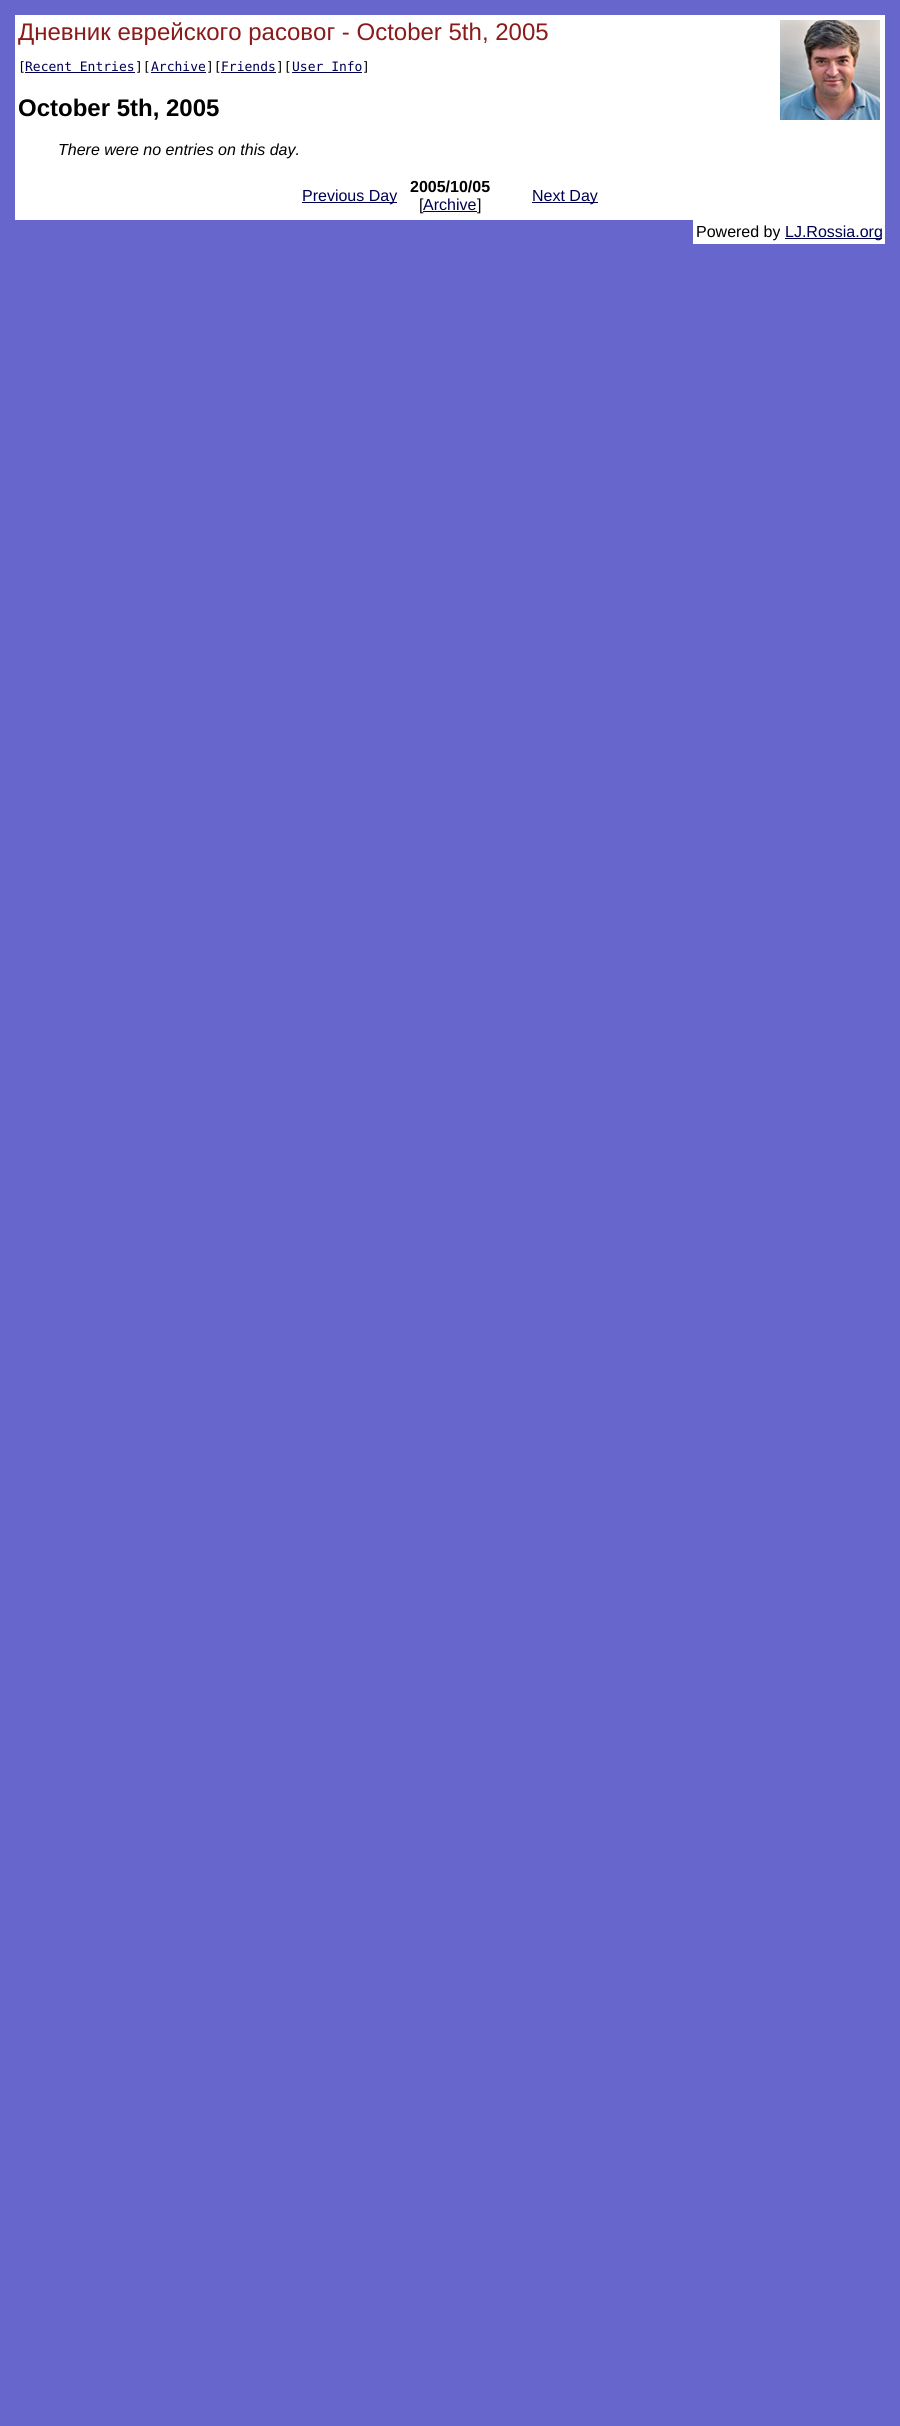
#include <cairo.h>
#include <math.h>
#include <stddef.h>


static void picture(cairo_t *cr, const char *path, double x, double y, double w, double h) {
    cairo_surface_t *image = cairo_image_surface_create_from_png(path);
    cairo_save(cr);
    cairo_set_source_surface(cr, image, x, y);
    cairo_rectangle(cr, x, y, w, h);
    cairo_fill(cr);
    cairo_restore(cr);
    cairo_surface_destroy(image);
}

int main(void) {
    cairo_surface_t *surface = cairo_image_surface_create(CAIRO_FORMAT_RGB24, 900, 2426);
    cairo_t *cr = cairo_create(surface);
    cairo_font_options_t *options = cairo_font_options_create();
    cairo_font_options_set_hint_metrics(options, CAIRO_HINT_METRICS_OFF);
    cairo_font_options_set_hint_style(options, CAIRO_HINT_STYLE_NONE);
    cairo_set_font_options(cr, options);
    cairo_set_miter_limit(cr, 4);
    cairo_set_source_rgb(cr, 0.4, 0.4, 0.8);
    cairo_paint(cr);
    cairo_set_source_rgb(cr, 1, 1, 1);
    cairo_rectangle(cr, 15, 15, 870, 205);
    cairo_fill(cr);
    cairo_select_font_face(cr, "Liberation Sans", CAIRO_FONT_SLANT_NORMAL, CAIRO_FONT_WEIGHT_NORMAL);
    cairo_set_font_size(cr, 24);
    cairo_set_source_rgb(cr, 0.545, 0.102, 0.102);
    cairo_move_to(cr, 18, 40);
    cairo_show_text(cr, "Дневник еврейского расовог - October 5th, 2005");
    picture(cr, "img1.png", 780, 20, 100, 100);
    cairo_select_font_face(cr, "DejaVu Sans Mono", CAIRO_FONT_SLANT_NORMAL, CAIRO_FONT_WEIGHT_NORMAL);
    cairo_set_font_size(cr, 13);
    cairo_set_source_rgb(cr, 0, 0, 0);
    cairo_move_to(cr, 18, 71);
    cairo_show_text(cr, "[");
    cairo_set_source_rgb(cr, 0, 0, 0.314);
    cairo_move_to(cr, 25, 71);
    cairo_show_text(cr, "Recent Entries");
    cairo_rectangle(cr, 25, 72, 110, 1);
    cairo_fill(cr);
    cairo_set_source_rgb(cr, 0, 0, 0);
    cairo_move_to(cr, 135, 71);
    cairo_show_text(cr, "][");
    cairo_set_source_rgb(cr, 0, 0, 0.314);
    cairo_move_to(cr, 151, 71);
    cairo_show_text(cr, "Archive");
    cairo_rectangle(cr, 151, 72, 55, 1);
    cairo_fill(cr);
    cairo_set_source_rgb(cr, 0, 0, 0);
    cairo_move_to(cr, 206, 71);
    cairo_show_text(cr, "][");
    cairo_set_source_rgb(cr, 0, 0, 0.314);
    cairo_move_to(cr, 221, 71);
    cairo_show_text(cr, "Friends");
    cairo_rectangle(cr, 221, 72, 55, 1);
    cairo_fill(cr);
    cairo_set_source_rgb(cr, 0, 0, 0);
    cairo_move_to(cr, 276, 71);
    cairo_show_text(cr, "][");
    cairo_set_source_rgb(cr, 0, 0, 0.314);
    cairo_move_to(cr, 292, 71);
    cairo_show_text(cr, "User Info");
    cairo_rectangle(cr, 292, 72, 70, 1);
    cairo_fill(cr);
    cairo_set_source_rgb(cr, 0, 0, 0);
    cairo_move_to(cr, 362, 71);
    cairo_show_text(cr, "]");
    cairo_select_font_face(cr, "Liberation Sans", CAIRO_FONT_SLANT_NORMAL, CAIRO_FONT_WEIGHT_BOLD);
    cairo_set_font_size(cr, 24);
    cairo_move_to(cr, 18, 116);
    cairo_show_text(cr, "October 5th, 2005");
    cairo_select_font_face(cr, "Liberation Sans", CAIRO_FONT_SLANT_ITALIC, CAIRO_FONT_WEIGHT_NORMAL);
    cairo_set_font_size(cr, 16);
    cairo_move_to(cr, 58, 155);
    cairo_show_text(cr, "There were no entries on this day.");
    cairo_set_source_rgb(cr, 0, 0, 0.314);
    cairo_rectangle(cr, 302, 202, 95, 1);
    cairo_fill(cr);
    cairo_select_font_face(cr, "Liberation Sans", CAIRO_FONT_SLANT_NORMAL, CAIRO_FONT_WEIGHT_NORMAL);
    cairo_move_to(cr, 302, 201);
    cairo_show_text(cr, "Previous Day");
    cairo_select_font_face(cr, "Liberation Sans", CAIRO_FONT_SLANT_NORMAL, CAIRO_FONT_WEIGHT_BOLD);
    cairo_set_source_rgb(cr, 0, 0, 0);
    cairo_move_to(cr, 410, 192);
    cairo_show_text(cr, "2005/10/05");
    cairo_select_font_face(cr, "Liberation Sans", CAIRO_FONT_SLANT_NORMAL, CAIRO_FONT_WEIGHT_NORMAL);
    cairo_move_to(cr, 419, 210);
    cairo_show_text(cr, "[");
    cairo_set_source_rgb(cr, 0, 0, 0.314);
    cairo_move_to(cr, 423, 210);
    cairo_show_text(cr, "Archive");
    cairo_rectangle(cr, 423, 211, 54, 1);
    cairo_fill(cr);
    cairo_set_source_rgb(cr, 0, 0, 0);
    cairo_move_to(cr, 477, 210);
    cairo_show_text(cr, "]");
    cairo_set_source_rgb(cr, 0, 0, 0.314);
    cairo_rectangle(cr, 532, 202, 66, 1);
    cairo_fill(cr);
    cairo_move_to(cr, 532, 201);
    cairo_show_text(cr, "Next Day");
    cairo_set_source_rgb(cr, 1, 1, 1);
    cairo_rectangle(cr, 693, 220, 192, 24);
    cairo_fill(cr);
    cairo_set_source_rgb(cr, 0, 0, 0);
    cairo_move_to(cr, 696, 237);
    cairo_show_text(cr, "Powered by");
    cairo_set_source_rgb(cr, 0, 0, 0.314);
    cairo_rectangle(cr, 785, 238, 97, 1);
    cairo_fill(cr);
    cairo_move_to(cr, 785, 237);
    cairo_show_text(cr, "LJ.Rossia.org");
    cairo_surface_write_to_png(surface, "page.png");
    cairo_font_options_destroy(options);
    cairo_destroy(cr);
    cairo_surface_destroy(surface);
    return 0;
}
